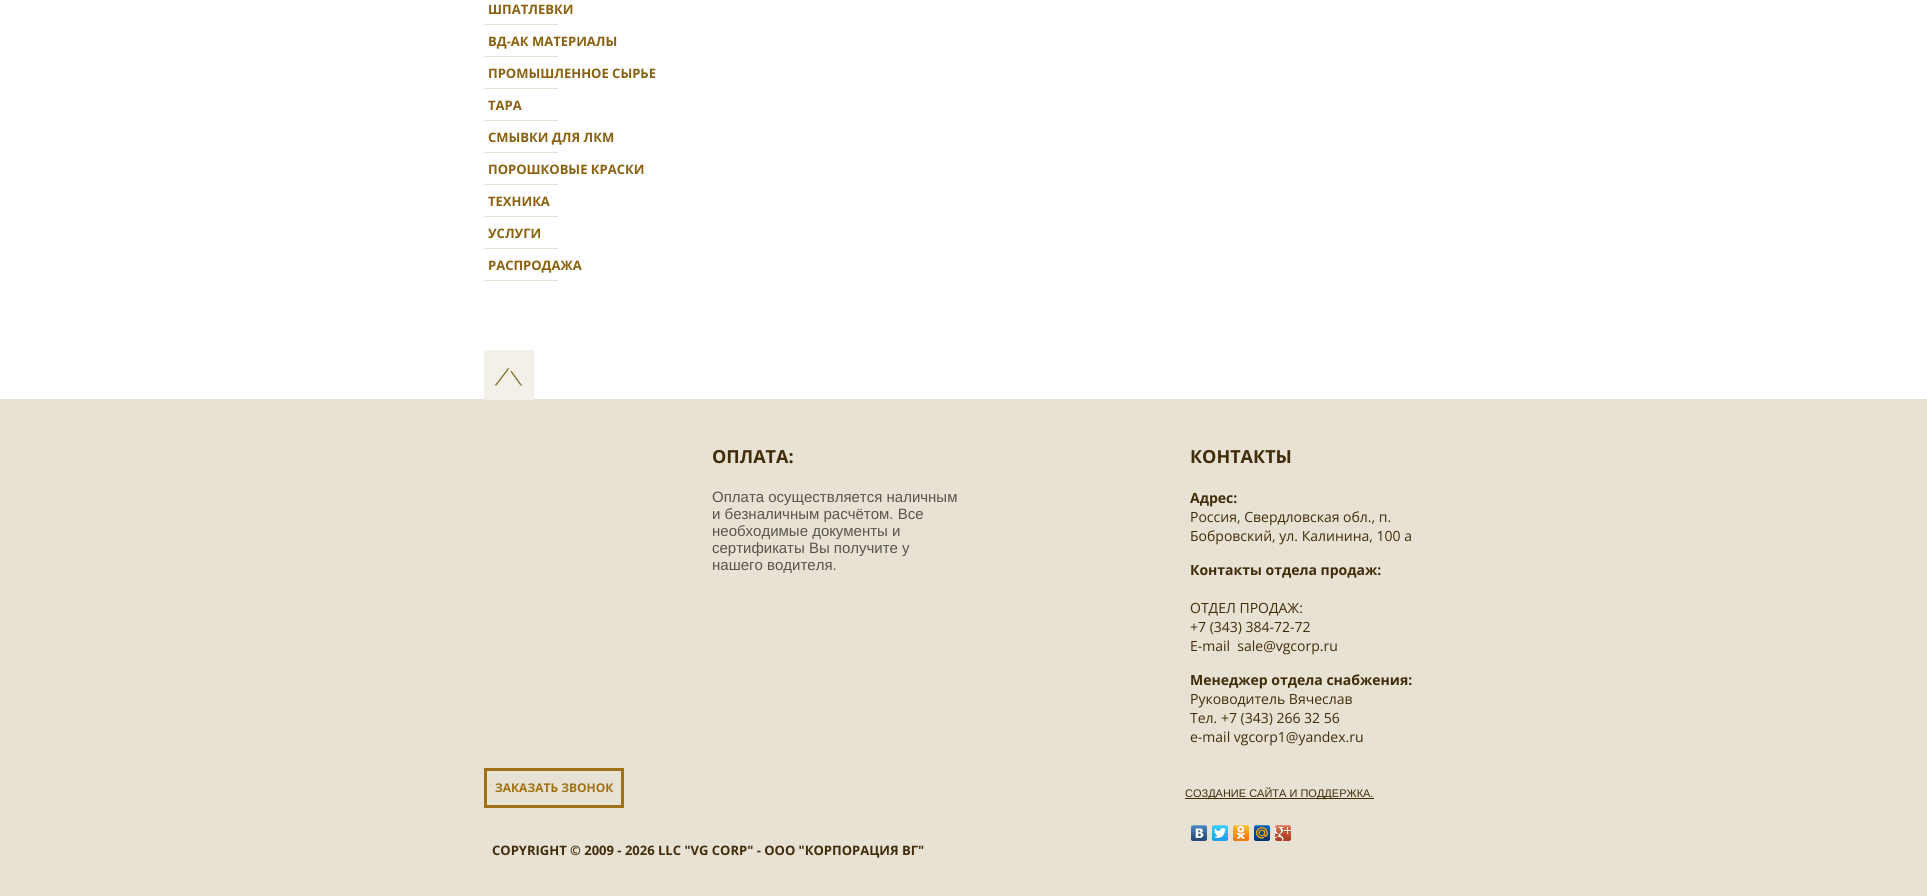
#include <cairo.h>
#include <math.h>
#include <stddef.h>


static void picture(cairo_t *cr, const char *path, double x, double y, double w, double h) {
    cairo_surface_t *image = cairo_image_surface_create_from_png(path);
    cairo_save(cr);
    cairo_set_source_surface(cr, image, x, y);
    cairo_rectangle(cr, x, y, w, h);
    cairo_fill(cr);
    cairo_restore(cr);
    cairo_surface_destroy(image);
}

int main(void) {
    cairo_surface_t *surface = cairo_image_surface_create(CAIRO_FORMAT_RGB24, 1927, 896);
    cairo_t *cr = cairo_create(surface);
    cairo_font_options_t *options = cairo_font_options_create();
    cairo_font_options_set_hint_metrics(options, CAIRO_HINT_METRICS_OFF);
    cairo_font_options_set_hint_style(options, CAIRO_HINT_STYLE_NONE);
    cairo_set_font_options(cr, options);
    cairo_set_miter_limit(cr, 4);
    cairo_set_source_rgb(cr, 1, 1, 1);
    cairo_paint(cr);
    cairo_select_font_face(cr, "Open Sans", CAIRO_FONT_SLANT_NORMAL, CAIRO_FONT_WEIGHT_BOLD);
    cairo_set_font_size(cr, 13);
    cairo_set_source_rgb(cr, 0.545, 0.38, 0.059);
    cairo_move_to(cr, 488, 14);
    cairo_show_text(cr, "ШПАТЛЕВКИ");
    cairo_set_source_rgb(cr, 0.906, 0.886, 0.831);
    cairo_rectangle(cr, 484, 24, 74, 1);
    cairo_fill(cr);
    cairo_set_source_rgb(cr, 0.545, 0.38, 0.059);
    cairo_move_to(cr, 488, 46);
    cairo_show_text(cr, "ВД-АК МАТЕРИАЛЫ");
    cairo_set_source_rgb(cr, 0.906, 0.886, 0.831);
    cairo_rectangle(cr, 484, 56, 74, 1);
    cairo_fill(cr);
    cairo_set_source_rgb(cr, 0.545, 0.38, 0.059);
    cairo_move_to(cr, 488, 78);
    cairo_show_text(cr, "ПРОМЫШЛЕННОЕ СЫРЬЕ");
    cairo_set_source_rgb(cr, 0.906, 0.886, 0.831);
    cairo_rectangle(cr, 484, 88, 74, 1);
    cairo_fill(cr);
    cairo_set_source_rgb(cr, 0.545, 0.38, 0.059);
    cairo_move_to(cr, 488, 110);
    cairo_show_text(cr, "ТАРА");
    cairo_set_source_rgb(cr, 0.906, 0.886, 0.831);
    cairo_rectangle(cr, 484, 120, 74, 1);
    cairo_fill(cr);
    cairo_set_source_rgb(cr, 0.545, 0.38, 0.059);
    cairo_move_to(cr, 488, 142);
    cairo_show_text(cr, "СМЫВКИ ДЛЯ ЛКМ");
    cairo_set_source_rgb(cr, 0.906, 0.886, 0.831);
    cairo_rectangle(cr, 484, 152, 74, 1);
    cairo_fill(cr);
    cairo_set_source_rgb(cr, 0.545, 0.38, 0.059);
    cairo_move_to(cr, 488, 174);
    cairo_show_text(cr, "ПОРОШКОВЫЕ КРАСКИ");
    cairo_set_source_rgb(cr, 0.906, 0.886, 0.831);
    cairo_rectangle(cr, 484, 184, 74, 1);
    cairo_fill(cr);
    cairo_set_source_rgb(cr, 0.545, 0.38, 0.059);
    cairo_move_to(cr, 488, 206);
    cairo_show_text(cr, "ТЕХНИКА");
    cairo_set_source_rgb(cr, 0.906, 0.886, 0.831);
    cairo_rectangle(cr, 484, 216, 74, 1);
    cairo_fill(cr);
    cairo_set_source_rgb(cr, 0.545, 0.38, 0.059);
    cairo_move_to(cr, 488, 238);
    cairo_show_text(cr, "УСЛУГИ");
    cairo_set_source_rgb(cr, 0.906, 0.886, 0.831);
    cairo_rectangle(cr, 484, 248, 74, 1);
    cairo_fill(cr);
    cairo_set_source_rgb(cr, 0.545, 0.38, 0.059);
    cairo_move_to(cr, 488, 270);
    cairo_show_text(cr, "РАСПРОДАЖА");
    cairo_set_source_rgb(cr, 0.906, 0.886, 0.831);
    cairo_rectangle(cr, 484, 280, 74, 1);
    cairo_fill(cr);
    cairo_rectangle(cr, 0, 399, 1927, 497);
    cairo_fill(cr);
    picture(cr, "img1.png", 484, 350, 50, 50);
    cairo_set_font_size(cr, 18);
    cairo_set_source_rgb(cr, 0.255, 0.176, 0.039);
    cairo_move_to(cr, 712, 463);
    cairo_show_text(cr, "ОПЛАТА:");
    cairo_select_font_face(cr, "Liberation Sans", CAIRO_FONT_SLANT_NORMAL, CAIRO_FONT_WEIGHT_NORMAL);
    cairo_set_font_size(cr, 15);
    cairo_set_source_rgb(cr, 0.345, 0.329, 0.29);
    cairo_move_to(cr, 712, 502);
    cairo_show_text(cr, "Оплата осуществляется наличным");
    cairo_move_to(cr, 712, 519);
    cairo_show_text(cr, "и безналичным расчётом. Все");
    cairo_move_to(cr, 712, 536);
    cairo_show_text(cr, "необходимые документы и");
    cairo_move_to(cr, 712, 553);
    cairo_show_text(cr, "сертификаты Вы получите у");
    cairo_move_to(cr, 712, 570);
    cairo_show_text(cr, "нашего водителя.");
    cairo_select_font_face(cr, "Open Sans", CAIRO_FONT_SLANT_NORMAL, CAIRO_FONT_WEIGHT_BOLD);
    cairo_set_font_size(cr, 18);
    cairo_set_source_rgb(cr, 0.255, 0.176, 0.039);
    cairo_move_to(cr, 1190, 463);
    cairo_show_text(cr, "КОНТАКТЫ");
    cairo_set_font_size(cr, 14);
    cairo_move_to(cr, 1190, 503);
    cairo_show_text(cr, "Адрес:");
    cairo_select_font_face(cr, "Open Sans", CAIRO_FONT_SLANT_NORMAL, CAIRO_FONT_WEIGHT_NORMAL);
    cairo_move_to(cr, 1190, 522);
    cairo_show_text(cr, "Россия, Свердловская обл., п.");
    cairo_move_to(cr, 1190, 541);
    cairo_show_text(cr, "Бобровский, ул. Калинина, 100 а");
    cairo_select_font_face(cr, "Open Sans", CAIRO_FONT_SLANT_NORMAL, CAIRO_FONT_WEIGHT_BOLD);
    cairo_move_to(cr, 1190, 575);
    cairo_show_text(cr, "Контакты отдела продаж:");
    cairo_select_font_face(cr, "Open Sans", CAIRO_FONT_SLANT_NORMAL, CAIRO_FONT_WEIGHT_NORMAL);
    cairo_move_to(cr, 1190, 613);
    cairo_show_text(cr, "ОТДЕЛ ПРОДАЖ:");
    cairo_move_to(cr, 1190, 632);
    cairo_show_text(cr, "+7 (343) 384-72-72");
    cairo_move_to(cr, 1190, 651);
    cairo_show_text(cr, "E-mail  sale@vgcorp.ru");
    cairo_select_font_face(cr, "Open Sans", CAIRO_FONT_SLANT_NORMAL, CAIRO_FONT_WEIGHT_BOLD);
    cairo_move_to(cr, 1190, 685);
    cairo_show_text(cr, "Менеджер отдела снабжения:");
    cairo_select_font_face(cr, "Open Sans", CAIRO_FONT_SLANT_NORMAL, CAIRO_FONT_WEIGHT_NORMAL);
    cairo_move_to(cr, 1190, 704);
    cairo_show_text(cr, "Руководитель Вячеслав");
    cairo_move_to(cr, 1190, 723);
    cairo_show_text(cr, "Тел. +7 (343) 266 32 56");
    cairo_move_to(cr, 1190, 742);
    cairo_show_text(cr, "e-mail vgcorp1@yandex.ru");
    cairo_rectangle(cr, 485.5, 769.5, 137, 37);
    cairo_set_source_rgb(cr, 0.627, 0.439, 0.075);
    cairo_set_line_width(cr, 3);
    cairo_stroke(cr);
    cairo_select_font_face(cr, "Open Sans", CAIRO_FONT_SLANT_NORMAL, CAIRO_FONT_WEIGHT_BOLD);
    cairo_set_font_size(cr, 12);
    cairo_move_to(cr, 495, 792);
    cairo_show_text(cr, "ЗАКАЗАТЬ ЗВОНОК");
    cairo_set_font_size(cr, 13);
    cairo_set_source_rgb(cr, 0.255, 0.176, 0.039);
    cairo_move_to(cr, 492, 855);
    cairo_show_text(cr, "COPYRIGHT © 2009 - 2026 LLC \"VG CORP\" - ООО \"КОРПОРАЦИЯ ВГ\"");
    cairo_rectangle(cr, 1185, 798, 189, 1);
    cairo_fill(cr);
    cairo_select_font_face(cr, "Liberation Sans", CAIRO_FONT_SLANT_NORMAL, CAIRO_FONT_WEIGHT_NORMAL);
    cairo_set_font_size(cr, 11);
    cairo_move_to(cr, 1185, 797);
    cairo_show_text(cr, "СОЗДАНИЕ САЙТА И ПОДДЕРЖКА.");
    picture(cr, "img2.png", 1191, 825, 16, 16);
    picture(cr, "img3.png", 1212, 825, 16, 16);
    picture(cr, "img4.png", 1233, 825, 16, 16);
    picture(cr, "img5.png", 1254, 825, 16, 16);
    picture(cr, "img6.png", 1275, 825, 16, 16);
    cairo_surface_write_to_png(surface, "page.png");
    cairo_font_options_destroy(options);
    cairo_destroy(cr);
    cairo_surface_destroy(surface);
    return 0;
}
